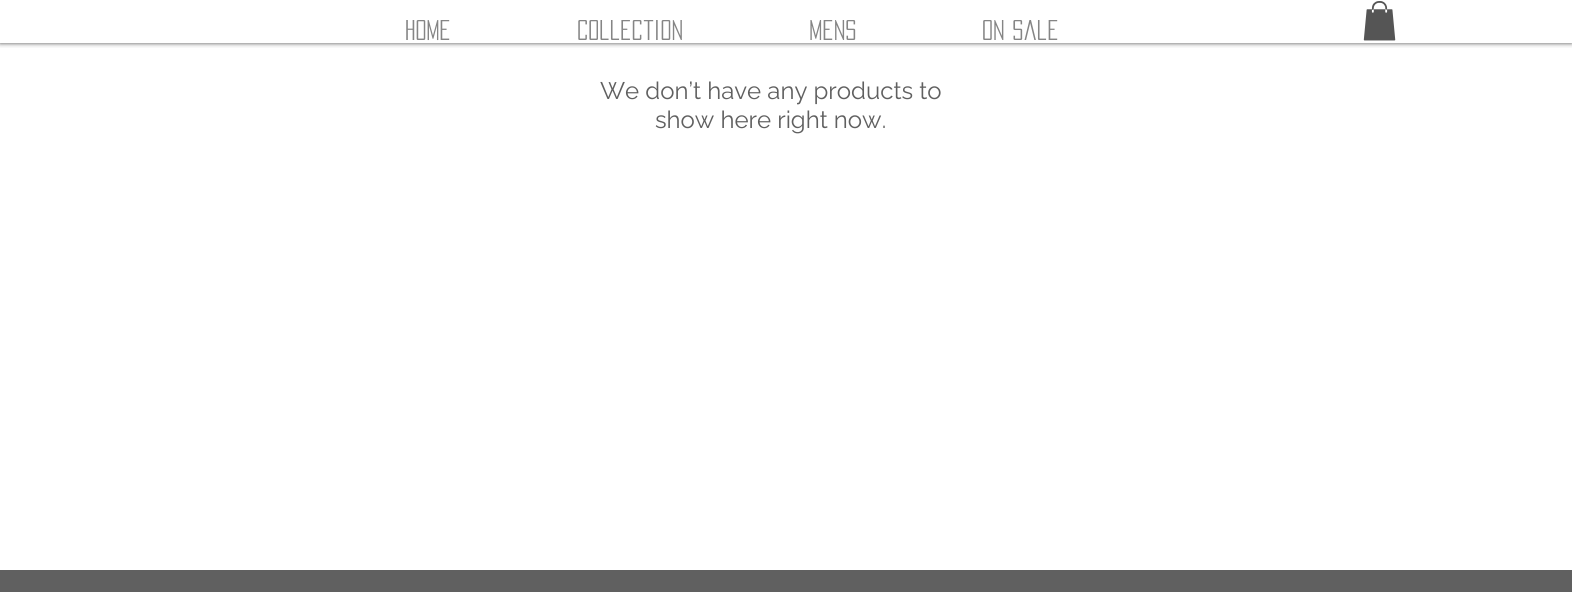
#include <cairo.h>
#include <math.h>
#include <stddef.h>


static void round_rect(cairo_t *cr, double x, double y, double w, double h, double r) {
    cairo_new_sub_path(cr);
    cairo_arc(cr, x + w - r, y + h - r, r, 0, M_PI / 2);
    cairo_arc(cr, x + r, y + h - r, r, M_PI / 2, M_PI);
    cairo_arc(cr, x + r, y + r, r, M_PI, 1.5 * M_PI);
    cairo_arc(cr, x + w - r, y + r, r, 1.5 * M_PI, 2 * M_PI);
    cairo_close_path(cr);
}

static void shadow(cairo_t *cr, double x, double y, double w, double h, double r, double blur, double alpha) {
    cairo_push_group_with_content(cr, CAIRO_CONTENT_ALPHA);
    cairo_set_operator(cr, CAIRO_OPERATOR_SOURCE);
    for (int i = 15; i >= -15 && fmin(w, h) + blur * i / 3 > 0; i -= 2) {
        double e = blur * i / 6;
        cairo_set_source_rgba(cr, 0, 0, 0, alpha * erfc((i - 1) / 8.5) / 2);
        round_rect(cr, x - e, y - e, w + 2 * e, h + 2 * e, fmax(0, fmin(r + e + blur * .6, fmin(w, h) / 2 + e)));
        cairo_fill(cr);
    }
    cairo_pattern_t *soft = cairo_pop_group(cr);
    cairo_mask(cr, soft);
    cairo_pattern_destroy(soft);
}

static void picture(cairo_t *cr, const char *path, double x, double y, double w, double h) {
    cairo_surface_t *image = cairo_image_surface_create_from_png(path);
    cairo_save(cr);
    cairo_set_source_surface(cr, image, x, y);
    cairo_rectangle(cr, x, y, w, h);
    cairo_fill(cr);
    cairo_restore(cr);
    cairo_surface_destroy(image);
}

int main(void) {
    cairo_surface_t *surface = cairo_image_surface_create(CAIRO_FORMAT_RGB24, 1572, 592);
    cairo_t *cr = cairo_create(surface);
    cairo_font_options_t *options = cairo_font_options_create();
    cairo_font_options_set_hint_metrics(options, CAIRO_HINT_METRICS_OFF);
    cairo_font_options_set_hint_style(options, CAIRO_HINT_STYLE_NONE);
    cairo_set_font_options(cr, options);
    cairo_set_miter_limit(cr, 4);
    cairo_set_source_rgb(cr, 1, 1, 1);
    cairo_paint(cr);
    cairo_save(cr);
    cairo_rectangle(cr, 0, 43, 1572, 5);
    cairo_clip(cr);
    cairo_set_source_rgb(cr, 0, 0, 0);
    shadow(cr, 0, 0, 1572, 43, 0, 2.5, 0.7);
    cairo_restore(cr);
    cairo_select_font_face(cr, "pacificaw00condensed", CAIRO_FONT_SLANT_NORMAL, CAIRO_FONT_WEIGHT_NORMAL);
    cairo_set_font_size(cr, 25);
    cairo_set_source_rgb(cr, 0.522, 0.522, 0.522);
    cairo_move_to(cr, 405, 40);
    cairo_show_text(cr, "Home");
    cairo_move_to(cr, 577, 40);
    cairo_show_text(cr, "Collection");
    cairo_move_to(cr, 809, 40);
    cairo_show_text(cr, "Mens");
    cairo_move_to(cr, 982, 40);
    cairo_show_text(cr, "On Sale");
    picture(cr, "img1.png", 1363, 1, 33, 40);
    cairo_select_font_face(cr, "Raleway", CAIRO_FONT_SLANT_NORMAL, CAIRO_FONT_WEIGHT_NORMAL);
    cairo_set_font_size(cr, 24);
    cairo_set_source_rgb(cr, 0.376, 0.376, 0.376);
    cairo_move_to(cr, 600, 99);
    cairo_show_text(cr, "We don’t have any products to");
    cairo_move_to(cr, 655, 128);
    cairo_show_text(cr, "show here right now.");
    cairo_rectangle(cr, 0, 570, 1572, 22);
    cairo_fill(cr);
    cairo_surface_write_to_png(surface, "page.png");
    cairo_font_options_destroy(options);
    cairo_destroy(cr);
    cairo_surface_destroy(surface);
    return 0;
}
